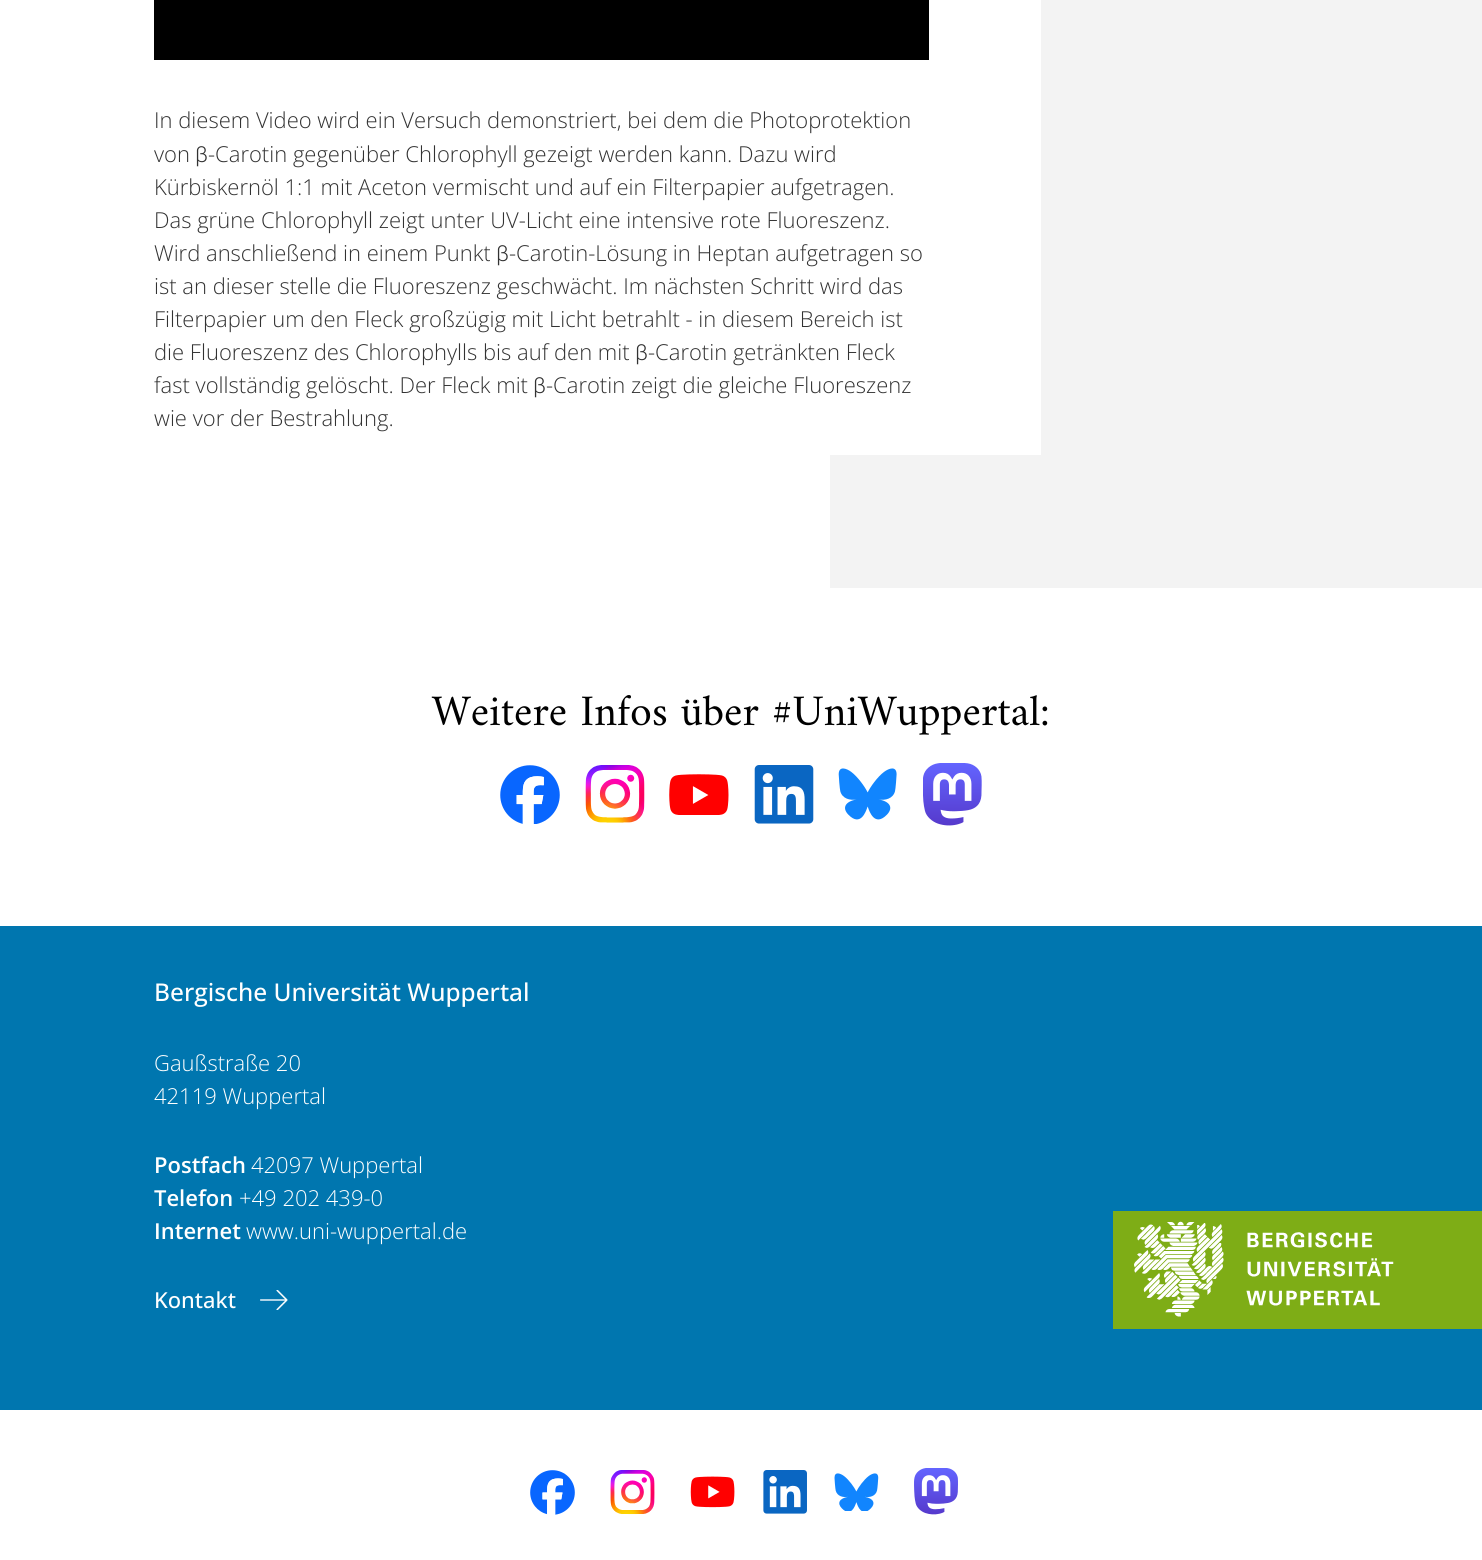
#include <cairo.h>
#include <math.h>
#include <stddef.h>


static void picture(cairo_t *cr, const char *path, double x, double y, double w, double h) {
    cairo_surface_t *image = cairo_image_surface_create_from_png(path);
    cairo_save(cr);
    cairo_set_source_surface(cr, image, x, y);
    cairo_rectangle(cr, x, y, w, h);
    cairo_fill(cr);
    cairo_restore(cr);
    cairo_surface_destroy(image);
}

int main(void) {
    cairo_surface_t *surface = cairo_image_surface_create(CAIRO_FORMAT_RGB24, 1482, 1560);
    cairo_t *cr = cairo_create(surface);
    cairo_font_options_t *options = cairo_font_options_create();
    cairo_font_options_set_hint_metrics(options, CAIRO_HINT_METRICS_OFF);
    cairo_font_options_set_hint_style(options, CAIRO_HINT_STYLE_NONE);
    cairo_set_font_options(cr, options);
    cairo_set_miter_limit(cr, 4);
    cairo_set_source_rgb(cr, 1, 1, 1);
    cairo_paint(cr);
    cairo_set_source_rgb(cr, 0.953, 0.953, 0.953);
    cairo_rectangle(cr, 830, 0, 652, 588);
    cairo_fill(cr);
    cairo_set_source_rgb(cr, 1, 1, 1);
    cairo_rectangle(cr, 830, 0, 211, 455);
    cairo_fill(cr);
    cairo_set_source_rgb(cr, 0, 0, 0);
    cairo_rectangle(cr, 154, 0, 775, 60);
    cairo_fill(cr);
    cairo_select_font_face(cr, "Open Sans Light", CAIRO_FONT_SLANT_NORMAL, CAIRO_FONT_WEIGHT_NORMAL);
    cairo_set_font_size(cr, 22);
    cairo_set_source_rgb(cr, 0.196, 0.196, 0.196);
    cairo_move_to(cr, 154, 128);
    cairo_show_text(cr, "In diesem Video wird ein Versuch demonstriert, bei dem die Photoprotektion");
    cairo_move_to(cr, 154, 162);
    cairo_show_text(cr, "von");
    cairo_select_font_face(cr, "Roboto Light", CAIRO_FONT_SLANT_NORMAL, CAIRO_FONT_WEIGHT_NORMAL);
    cairo_move_to(cr, 195, 162);
    cairo_show_text(cr, "β");
    cairo_select_font_face(cr, "Open Sans Light", CAIRO_FONT_SLANT_NORMAL, CAIRO_FONT_WEIGHT_NORMAL);
    cairo_move_to(cr, 208, 162);
    cairo_show_text(cr, "-Carotin gegenüber Chlorophyll gezeigt werden kann. Dazu wird");
    cairo_move_to(cr, 154, 195);
    cairo_show_text(cr, "Kürbiskernöl 1:1 mit Aceton vermischt und auf ein Filterpapier aufgetragen.");
    cairo_move_to(cr, 154, 228);
    cairo_show_text(cr, "Das grüne Chlorophyll zeigt unter UV-Licht eine intensive rote Fluoreszenz.");
    cairo_move_to(cr, 154, 261);
    cairo_show_text(cr, "Wird anschließend in einem Punkt");
    cairo_select_font_face(cr, "Roboto Light", CAIRO_FONT_SLANT_NORMAL, CAIRO_FONT_WEIGHT_NORMAL);
    cairo_move_to(cr, 496, 261);
    cairo_show_text(cr, "β");
    cairo_select_font_face(cr, "Open Sans Light", CAIRO_FONT_SLANT_NORMAL, CAIRO_FONT_WEIGHT_NORMAL);
    cairo_move_to(cr, 509, 261);
    cairo_show_text(cr, "-Carotin-Lösung in Heptan aufgetragen so");
    cairo_move_to(cr, 154, 294);
    cairo_show_text(cr, "ist an dieser stelle die Fluoreszenz geschwächt. Im nächsten Schritt wird das");
    cairo_move_to(cr, 154, 327);
    cairo_show_text(cr, "Filterpapier um den Fleck großzügig mit Licht betrahlt - in diesem Bereich ist");
    cairo_move_to(cr, 154, 360);
    cairo_show_text(cr, "die Fluoreszenz des Chlorophylls bis auf den mit");
    cairo_select_font_face(cr, "Roboto Light", CAIRO_FONT_SLANT_NORMAL, CAIRO_FONT_WEIGHT_NORMAL);
    cairo_move_to(cr, 635, 360);
    cairo_show_text(cr, "β");
    cairo_select_font_face(cr, "Open Sans Light", CAIRO_FONT_SLANT_NORMAL, CAIRO_FONT_WEIGHT_NORMAL);
    cairo_move_to(cr, 648, 360);
    cairo_show_text(cr, "-Carotin getränkten Fleck");
    cairo_move_to(cr, 154, 393);
    cairo_show_text(cr, "fast vollständig gelöscht. Der Fleck mit");
    cairo_select_font_face(cr, "Roboto Light", CAIRO_FONT_SLANT_NORMAL, CAIRO_FONT_WEIGHT_NORMAL);
    cairo_move_to(cr, 533, 393);
    cairo_show_text(cr, "β");
    cairo_select_font_face(cr, "Open Sans Light", CAIRO_FONT_SLANT_NORMAL, CAIRO_FONT_WEIGHT_NORMAL);
    cairo_move_to(cr, 546, 393);
    cairo_show_text(cr, "-Carotin zeigt die gleiche Fluoreszenz");
    cairo_move_to(cr, 154, 426);
    cairo_show_text(cr, "wie vor der Bestrahlung.");
    cairo_select_font_face(cr, "Amiri", CAIRO_FONT_SLANT_NORMAL, CAIRO_FONT_WEIGHT_NORMAL);
    cairo_set_font_size(cr, 44);
    cairo_set_source_rgb(cr, 0, 0, 0);
    cairo_move_to(cr, 432, 725);
    cairo_show_text(cr, "Weitere Infos über #UniWuppertal:");
    picture(cr, "img1.png", 500, 765, 60, 59);
    picture(cr, "img2.png", 585, 765, 60, 58);
    picture(cr, "img3.png", 669, 774, 60, 41);
    picture(cr, "img4.png", 754, 765, 60, 59);
    picture(cr, "img5.png", 838, 768, 59, 52);
    picture(cr, "img6.png", 923, 763, 59, 63);
    cairo_set_source_rgb(cr, 0, 0.463, 0.686);
    cairo_rectangle(cr, 0, 926, 1482, 484);
    cairo_fill(cr);
    cairo_select_font_face(cr, "Open Sans Medium", CAIRO_FONT_SLANT_NORMAL, CAIRO_FONT_WEIGHT_NORMAL);
    cairo_set_font_size(cr, 24.5);
    cairo_set_source_rgb(cr, 1, 1, 1);
    cairo_move_to(cr, 154, 1001);
    cairo_show_text(cr, "Bergische Universität Wuppertal");
    cairo_select_font_face(cr, "Open Sans Light", CAIRO_FONT_SLANT_NORMAL, CAIRO_FONT_WEIGHT_NORMAL);
    cairo_set_font_size(cr, 22);
    cairo_move_to(cr, 154, 1071);
    cairo_show_text(cr, "Gaußstraße 20");
    cairo_move_to(cr, 154, 1104);
    cairo_show_text(cr, "42119 Wuppertal");
    cairo_select_font_face(cr, "Open Sans SemiBold", CAIRO_FONT_SLANT_NORMAL, CAIRO_FONT_WEIGHT_NORMAL);
    cairo_move_to(cr, 154, 1173);
    cairo_show_text(cr, "Postfach");
    cairo_select_font_face(cr, "Open Sans Light", CAIRO_FONT_SLANT_NORMAL, CAIRO_FONT_WEIGHT_NORMAL);
    cairo_move_to(cr, 251, 1173);
    cairo_show_text(cr, "42097 Wuppertal");
    cairo_select_font_face(cr, "Open Sans SemiBold", CAIRO_FONT_SLANT_NORMAL, CAIRO_FONT_WEIGHT_NORMAL);
    cairo_move_to(cr, 154, 1206);
    cairo_show_text(cr, "Telefon");
    cairo_select_font_face(cr, "Open Sans Light", CAIRO_FONT_SLANT_NORMAL, CAIRO_FONT_WEIGHT_NORMAL);
    cairo_move_to(cr, 239, 1206);
    cairo_show_text(cr, "+49 202 439-0");
    cairo_select_font_face(cr, "Open Sans SemiBold", CAIRO_FONT_SLANT_NORMAL, CAIRO_FONT_WEIGHT_NORMAL);
    cairo_move_to(cr, 154, 1239);
    cairo_show_text(cr, "Internet");
    cairo_select_font_face(cr, "Open Sans Light", CAIRO_FONT_SLANT_NORMAL, CAIRO_FONT_WEIGHT_NORMAL);
    cairo_move_to(cr, 246, 1239);
    cairo_show_text(cr, "www.uni-wuppertal.de");
    cairo_select_font_face(cr, "Open Sans Medium", CAIRO_FONT_SLANT_NORMAL, CAIRO_FONT_WEIGHT_NORMAL);
    cairo_move_to(cr, 154, 1308);
    cairo_show_text(cr, "Kontakt");
    picture(cr, "img7.png", 260, 1290, 28, 20);
    cairo_set_source_rgb(cr, 0.494, 0.678, 0.086);
    cairo_rectangle(cr, 1113, 1211, 369, 118);
    cairo_fill(cr);
    picture(cr, "img8.png", 1134, 1221, 260, 96);
    picture(cr, "img9.png", 530, 1470, 45, 45);
    picture(cr, "img10.png", 610, 1470, 45, 45);
    picture(cr, "img11.png", 690, 1476, 45, 32);
    picture(cr, "img12.png", 763, 1470, 44, 44);
    picture(cr, "img13.png", 834, 1473, 45, 38);
    picture(cr, "img14.png", 914, 1468, 44, 47);
    cairo_surface_write_to_png(surface, "page.png");
    cairo_font_options_destroy(options);
    cairo_destroy(cr);
    cairo_surface_destroy(surface);
    return 0;
}
